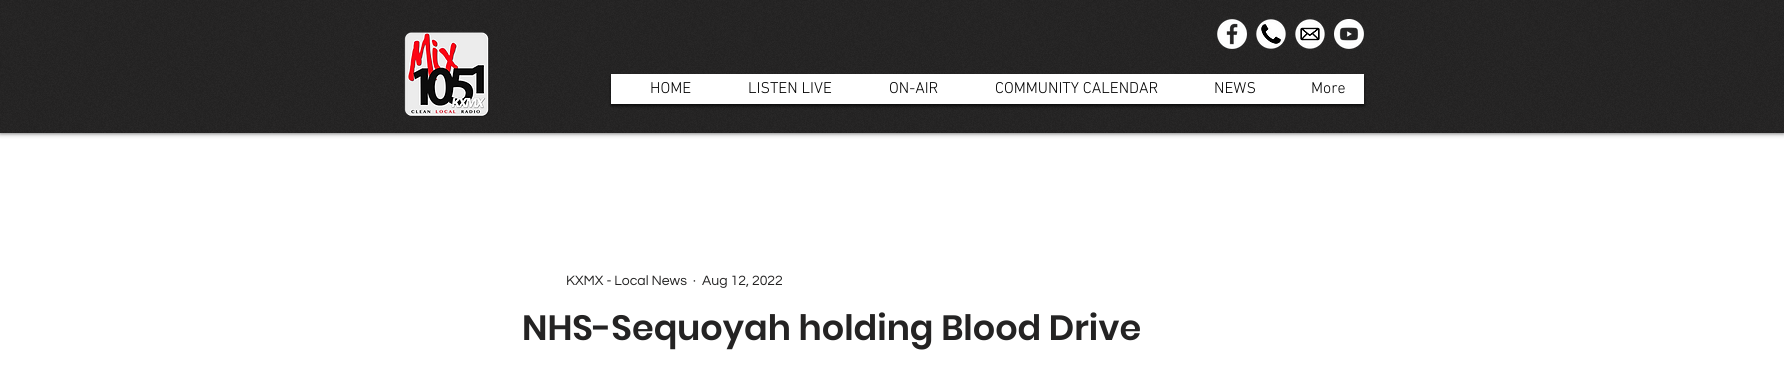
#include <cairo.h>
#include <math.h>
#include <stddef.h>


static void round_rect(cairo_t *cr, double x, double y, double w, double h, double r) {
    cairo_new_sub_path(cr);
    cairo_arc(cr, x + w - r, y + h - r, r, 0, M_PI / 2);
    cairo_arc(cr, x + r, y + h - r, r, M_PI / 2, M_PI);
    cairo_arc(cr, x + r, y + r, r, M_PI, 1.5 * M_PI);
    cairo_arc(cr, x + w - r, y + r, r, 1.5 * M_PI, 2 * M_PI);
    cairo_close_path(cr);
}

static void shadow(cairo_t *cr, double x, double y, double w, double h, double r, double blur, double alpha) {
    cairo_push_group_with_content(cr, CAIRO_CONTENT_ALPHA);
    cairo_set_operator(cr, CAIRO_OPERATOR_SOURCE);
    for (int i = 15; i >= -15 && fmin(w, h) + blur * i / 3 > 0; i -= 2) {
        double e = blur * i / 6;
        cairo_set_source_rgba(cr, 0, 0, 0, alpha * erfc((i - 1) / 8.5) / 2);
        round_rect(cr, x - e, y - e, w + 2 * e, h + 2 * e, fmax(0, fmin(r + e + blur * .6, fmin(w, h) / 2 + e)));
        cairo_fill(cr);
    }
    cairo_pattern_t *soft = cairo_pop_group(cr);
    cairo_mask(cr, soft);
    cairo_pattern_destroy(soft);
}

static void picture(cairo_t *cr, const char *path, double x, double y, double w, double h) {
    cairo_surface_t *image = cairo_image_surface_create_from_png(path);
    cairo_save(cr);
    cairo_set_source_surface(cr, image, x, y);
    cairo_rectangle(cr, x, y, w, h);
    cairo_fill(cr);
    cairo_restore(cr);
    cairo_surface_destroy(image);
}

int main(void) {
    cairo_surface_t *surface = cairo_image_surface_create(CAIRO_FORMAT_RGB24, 1784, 365);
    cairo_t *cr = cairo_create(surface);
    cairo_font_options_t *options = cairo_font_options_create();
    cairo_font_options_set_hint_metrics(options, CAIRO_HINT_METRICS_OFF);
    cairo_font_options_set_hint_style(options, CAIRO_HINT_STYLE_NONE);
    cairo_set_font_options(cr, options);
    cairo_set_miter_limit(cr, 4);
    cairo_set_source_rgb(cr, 1, 1, 1);
    cairo_paint(cr);
    cairo_set_source_rgb(cr, 0, 0, 0);
    shadow(cr, 0, 0, 1784, 133, 0, 2.5, 0.7);
    cairo_set_source_rgb(cr, 0.141, 0.137, 0.137);
    cairo_rectangle(cr, 0, 0, 1784, 133);
    cairo_fill(cr);
    picture(cr, "img1.png", 0, 0, 1784, 133);
    picture(cr, "img2.png", 404, 32, 86, 85);
    picture(cr, "img3.png", 1217, 19, 30, 30);
    picture(cr, "img4.png", 1256, 19, 30, 30);
    picture(cr, "img5.png", 1295, 19, 30, 30);
    picture(cr, "img6.png", 1334, 19, 30, 30);
    cairo_set_source_rgb(cr, 0, 0, 0);
    shadow(cr, 611, 76, 753, 30, 0, 1.5, 0.7);
    cairo_set_source_rgb(cr, 1, 1, 1);
    cairo_rectangle(cr, 611, 74, 753, 30);
    cairo_fill(cr);
    cairo_select_font_face(cr, "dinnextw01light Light", CAIRO_FONT_SLANT_NORMAL, CAIRO_FONT_WEIGHT_NORMAL);
    cairo_set_font_size(cr, 16);
    cairo_set_source_rgb(cr, 0, 0, 0);
    cairo_move_to(cr, 650, 93);
    cairo_show_text(cr, "HOME");
    cairo_move_to(cr, 748, 93);
    cairo_show_text(cr, "LISTEN LIVE");
    cairo_move_to(cr, 889, 93);
    cairo_show_text(cr, "ON-AIR");
    cairo_move_to(cr, 995, 93);
    cairo_show_text(cr, "COMMUNITY CALENDAR");
    cairo_move_to(cr, 1214, 93);
    cairo_show_text(cr, "NEWS");
    cairo_move_to(cr, 1311, 93);
    cairo_show_text(cr, "More");
    cairo_select_font_face(cr, "Questrial", CAIRO_FONT_SLANT_NORMAL, CAIRO_FONT_WEIGHT_NORMAL);
    cairo_set_font_size(cr, 14);
    cairo_set_source_rgb(cr, 0.141, 0.137, 0.137);
    cairo_move_to(cr, 566, 285);
    cairo_show_text(cr, "KXMX - Local News");
    cairo_move_to(cr, 693, 285);
    cairo_show_text(cr, "·");
    cairo_move_to(cr, 702, 285);
    cairo_show_text(cr, "Aug 12, 2022");
    cairo_select_font_face(cr, "Poppins SemiBold", CAIRO_FONT_SLANT_NORMAL, CAIRO_FONT_WEIGHT_NORMAL);
    cairo_set_font_size(cr, 35);
    cairo_move_to(cr, 522, 340);
    cairo_show_text(cr, "NHS-Sequoyah holding Blood Drive");
    cairo_surface_write_to_png(surface, "page.png");
    cairo_font_options_destroy(options);
    cairo_destroy(cr);
    cairo_surface_destroy(surface);
    return 0;
}
